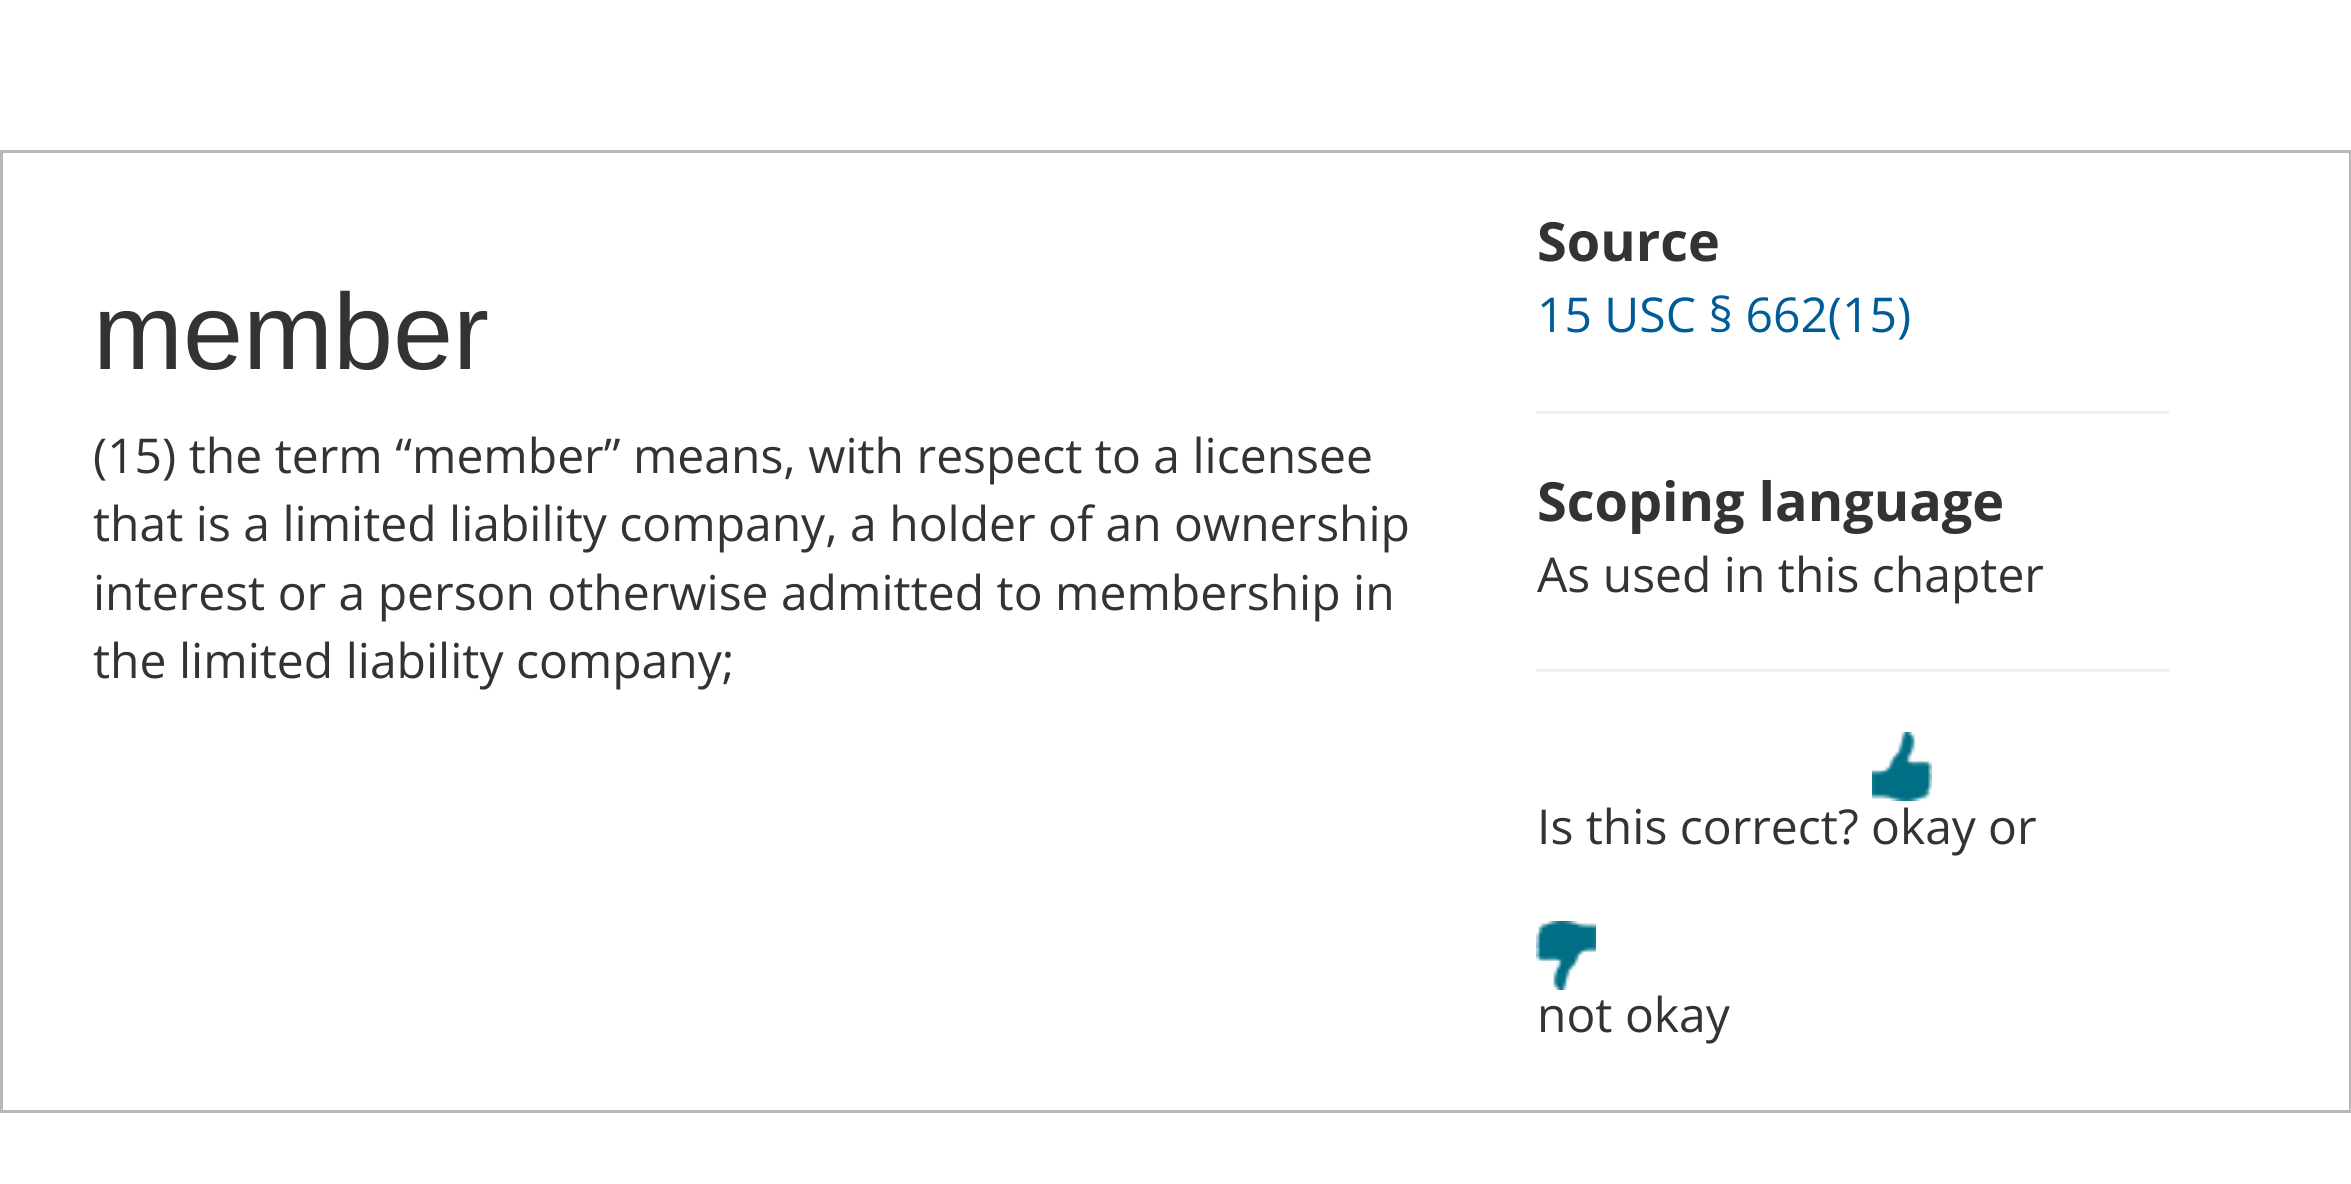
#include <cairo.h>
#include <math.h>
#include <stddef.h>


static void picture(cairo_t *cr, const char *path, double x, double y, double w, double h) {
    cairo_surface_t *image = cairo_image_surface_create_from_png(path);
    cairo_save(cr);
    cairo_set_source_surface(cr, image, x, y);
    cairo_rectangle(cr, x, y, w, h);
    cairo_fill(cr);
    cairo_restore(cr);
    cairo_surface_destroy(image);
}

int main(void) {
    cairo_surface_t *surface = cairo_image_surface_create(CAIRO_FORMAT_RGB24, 2351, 1184);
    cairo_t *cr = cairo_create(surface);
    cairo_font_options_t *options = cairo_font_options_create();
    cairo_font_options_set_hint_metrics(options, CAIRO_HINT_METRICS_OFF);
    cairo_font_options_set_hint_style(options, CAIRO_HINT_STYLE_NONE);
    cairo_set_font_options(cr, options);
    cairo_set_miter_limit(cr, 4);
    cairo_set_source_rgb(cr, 1, 1, 1);
    cairo_paint(cr);
    cairo_rectangle(cr, 1.5, 151.5, 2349, 960);
    cairo_set_source_rgb(cr, 0.718, 0.718, 0.718);
    cairo_set_line_width(cr, 3);
    cairo_stroke(cr);
    cairo_select_font_face(cr, "Liberation Sans", CAIRO_FONT_SLANT_NORMAL, CAIRO_FONT_WEIGHT_NORMAL);
    cairo_set_font_size(cr, 108);
    cairo_set_source_rgb(cr, 0.2, 0.2, 0.2);
    cairo_move_to(cr, 93, 369);
    cairo_show_text(cr, "member");
    cairo_select_font_face(cr, "Open Sans", CAIRO_FONT_SLANT_NORMAL, CAIRO_FONT_WEIGHT_NORMAL);
    cairo_set_font_size(cr, 48);
    cairo_move_to(cr, 93, 473);
    cairo_show_text(cr, "(15) the term “member” means, with respect to a licensee");
    cairo_move_to(cr, 93, 541);
    cairo_show_text(cr, "that is a limited liability company, a holder of an ownership");
    cairo_move_to(cr, 93, 610);
    cairo_show_text(cr, "interest or a person otherwise admitted to membership in");
    cairo_move_to(cr, 93, 678);
    cairo_show_text(cr, "the limited liability company;");
    cairo_select_font_face(cr, "Open Sans", CAIRO_FONT_SLANT_NORMAL, CAIRO_FONT_WEIGHT_BOLD);
    cairo_set_font_size(cr, 54);
    cairo_move_to(cr, 1537, 261);
    cairo_show_text(cr, "Source");
    cairo_select_font_face(cr, "Open Sans", CAIRO_FONT_SLANT_NORMAL, CAIRO_FONT_WEIGHT_NORMAL);
    cairo_set_font_size(cr, 48);
    cairo_set_source_rgb(cr, 0, 0.361, 0.6);
    cairo_move_to(cr, 1537, 332);
    cairo_show_text(cr, "15 USC § 662(15)");
    cairo_set_source_rgb(cr, 0.933, 0.933, 0.933);
    cairo_rectangle(cr, 1536, 411, 633, 3);
    cairo_fill(cr);
    cairo_select_font_face(cr, "Open Sans", CAIRO_FONT_SLANT_NORMAL, CAIRO_FONT_WEIGHT_BOLD);
    cairo_set_font_size(cr, 54);
    cairo_set_source_rgb(cr, 0.2, 0.2, 0.2);
    cairo_move_to(cr, 1537, 521);
    cairo_show_text(cr, "Scoping language");
    cairo_select_font_face(cr, "Open Sans", CAIRO_FONT_SLANT_NORMAL, CAIRO_FONT_WEIGHT_NORMAL);
    cairo_set_font_size(cr, 48);
    cairo_move_to(cr, 1537, 592);
    cairo_show_text(cr, "As used in this chapter");
    cairo_set_source_rgb(cr, 0.933, 0.933, 0.933);
    cairo_rectangle(cr, 1536, 669, 633, 3);
    cairo_fill(cr);
    picture(cr, "img1.png", 1872, 732, 60, 69);
    cairo_set_source_rgb(cr, 0.2, 0.2, 0.2);
    cairo_move_to(cr, 1537, 844);
    cairo_show_text(cr, "Is this correct? okay");
    cairo_move_to(cr, 1988, 844);
    cairo_show_text(cr, "or");
    picture(cr, "img2.png", 1536, 921, 60, 69);
    cairo_move_to(cr, 1537, 1032);
    cairo_show_text(cr, "not okay");
    cairo_surface_write_to_png(surface, "page.png");
    cairo_font_options_destroy(options);
    cairo_destroy(cr);
    cairo_surface_destroy(surface);
    return 0;
}
